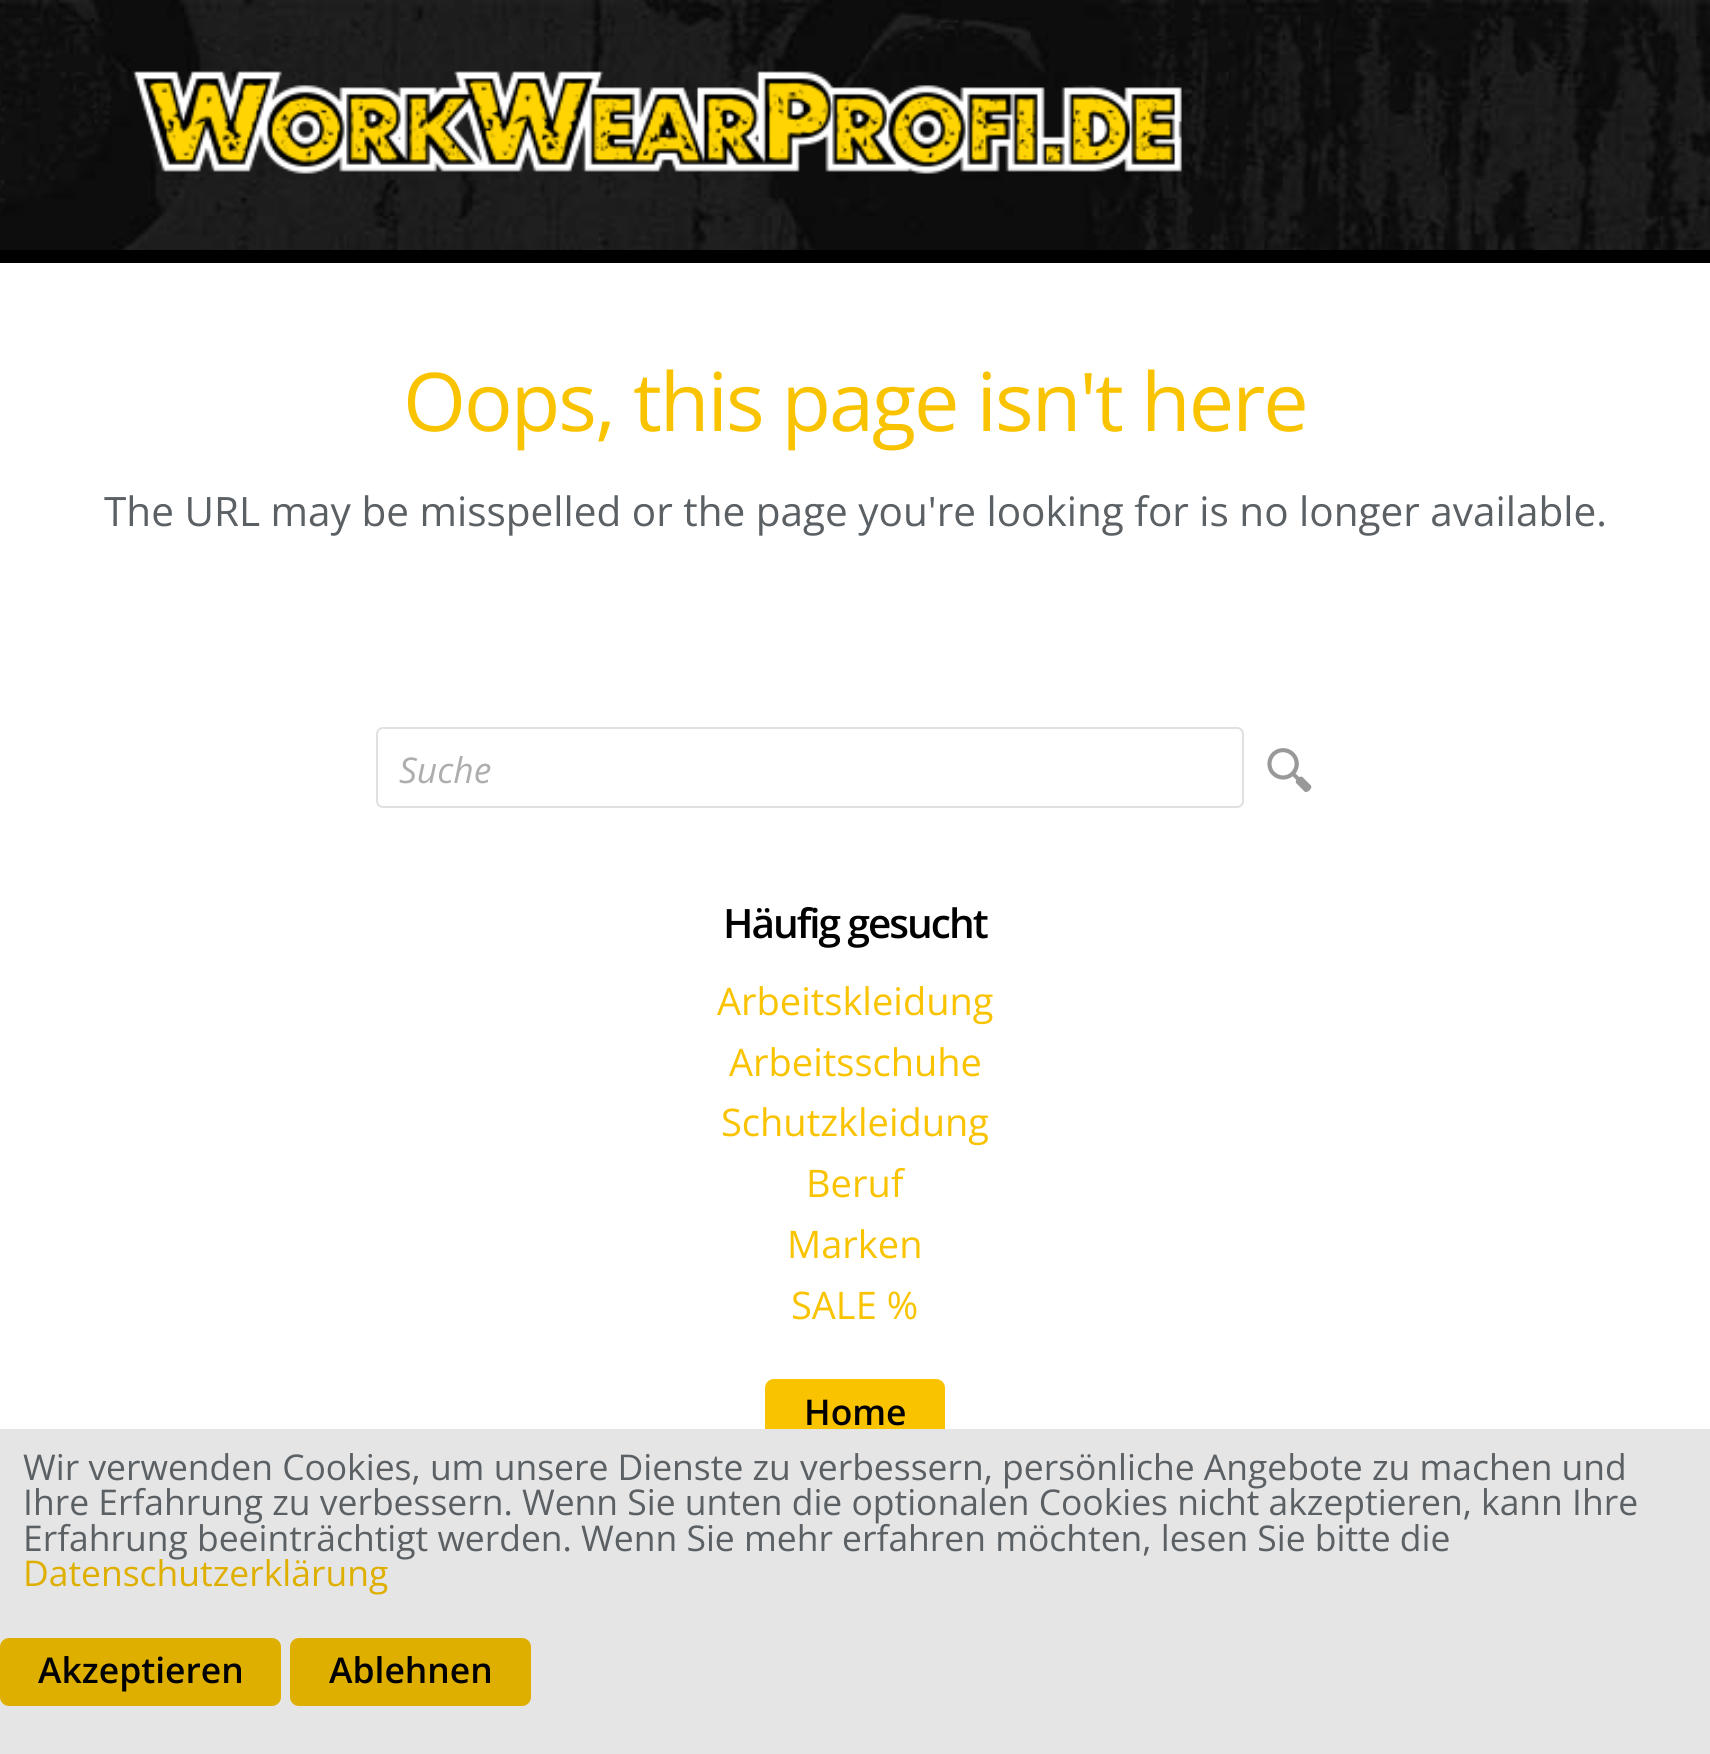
#include <cairo.h>
#include <math.h>
#include <stddef.h>


static void spaced_text(cairo_t *cr, double x, double y, const char *s, double letter, double word) {
    cairo_move_to(cr, x, y);
    while (*s) {
        char ch[5] = {0};
        int n = 0;
        do ch[n++] = *s++; while ((*s & 0xC0) == 0x80);
        cairo_show_text(cr, ch);
        cairo_rel_move_to(cr, letter + word * (*ch == ' '), 0);
    }
}

static void round_rect(cairo_t *cr, double x, double y, double w, double h, double r) {
    cairo_new_sub_path(cr);
    cairo_arc(cr, x + w - r, y + h - r, r, 0, M_PI / 2);
    cairo_arc(cr, x + r, y + h - r, r, M_PI / 2, M_PI);
    cairo_arc(cr, x + r, y + r, r, M_PI, 1.5 * M_PI);
    cairo_arc(cr, x + w - r, y + r, r, 1.5 * M_PI, 2 * M_PI);
    cairo_close_path(cr);
}

static void picture(cairo_t *cr, const char *path, double x, double y, double w, double h) {
    cairo_surface_t *image = cairo_image_surface_create_from_png(path);
    cairo_save(cr);
    cairo_set_source_surface(cr, image, x, y);
    cairo_rectangle(cr, x, y, w, h);
    cairo_fill(cr);
    cairo_restore(cr);
    cairo_surface_destroy(image);
}

int main(void) {
    cairo_surface_t *surface = cairo_image_surface_create(CAIRO_FORMAT_RGB24, 1710, 1754);
    cairo_t *cr = cairo_create(surface);
    cairo_font_options_t *options = cairo_font_options_create();
    cairo_font_options_set_hint_metrics(options, CAIRO_HINT_METRICS_OFF);
    cairo_font_options_set_hint_style(options, CAIRO_HINT_STYLE_NONE);
    cairo_set_font_options(cr, options);
    cairo_set_miter_limit(cr, 4);
    cairo_set_source_rgb(cr, 1, 1, 1);
    cairo_paint(cr);
    picture(cr, "img1.png", 0, 0, 1710, 250);
    cairo_set_source_rgb(cr, 0, 0, 0);
    cairo_rectangle(cr, 0, 250, 1710, 13);
    cairo_fill(cr);
    picture(cr, "img2.png", 132, 71, 1050, 103);
    cairo_select_font_face(cr, "Open Sans", CAIRO_FONT_SLANT_NORMAL, CAIRO_FONT_WEIGHT_NORMAL);
    cairo_set_font_size(cr, 81);
    cairo_set_source_rgb(cr, 0.973, 0.765, 0);
    spaced_text(cr, 403, 431, "Oops, this page isn't here", -2, 0);
    cairo_set_font_size(cr, 40.5);
    cairo_set_source_rgb(cr, 0.357, 0.376, 0.392);
    cairo_move_to(cr, 104, 526);
    cairo_show_text(cr, "The URL may be misspelled or the page you're looking for is no longer available.");
    round_rect(cr, 377, 728, 866, 79, 6);
    cairo_set_source_rgb(cr, 0.878, 0.878, 0.878);
    cairo_stroke(cr);
    cairo_select_font_face(cr, "Open Sans", CAIRO_FONT_SLANT_ITALIC, CAIRO_FONT_WEIGHT_NORMAL);
    cairo_set_font_size(cr, 35.45);
    cairo_set_source_rgb(cr, 0.682, 0.682, 0.682);
    cairo_move_to(cr, 399, 783);
    cairo_show_text(cr, "Suche");
    picture(cr, "img3.png", 1267, 748, 45, 44);
    cairo_select_font_face(cr, "Open Sans SemiBold", CAIRO_FONT_SLANT_NORMAL, CAIRO_FONT_WEIGHT_NORMAL);
    cairo_set_font_size(cr, 40.5);
    cairo_set_source_rgb(cr, 0, 0, 0);
    spaced_text(cr, 723, 938, "Häufig gesucht", -2, 0);
    cairo_select_font_face(cr, "Open Sans", CAIRO_FONT_SLANT_NORMAL, CAIRO_FONT_WEIGHT_NORMAL);
    cairo_set_font_size(cr, 38);
    cairo_set_source_rgb(cr, 0.973, 0.765, 0);
    cairo_move_to(cr, 717, 1015);
    cairo_show_text(cr, "Arbeitskleidung");
    cairo_move_to(cr, 729, 1076);
    cairo_show_text(cr, "Arbeitsschuhe");
    cairo_move_to(cr, 721, 1136);
    cairo_show_text(cr, "Schutzkleidung");
    cairo_move_to(cr, 806, 1197);
    cairo_show_text(cr, "Beruf");
    cairo_move_to(cr, 787, 1258);
    cairo_show_text(cr, "Marken");
    cairo_move_to(cr, 791, 1319);
    cairo_show_text(cr, "SALE %");
    round_rect(cr, 765, 1379, 180, 68, 9);
    cairo_fill(cr);
    cairo_select_font_face(cr, "Open Sans SemiBold", CAIRO_FONT_SLANT_NORMAL, CAIRO_FONT_WEIGHT_NORMAL);
    cairo_set_font_size(cr, 35.45);
    cairo_set_source_rgb(cr, 0, 0, 0);
    cairo_move_to(cr, 804, 1425);
    cairo_show_text(cr, "Home");
    cairo_set_source_rgb(cr, 0.898, 0.898, 0.898);
    cairo_rectangle(cr, 0, 1429, 1710, 325);
    cairo_fill(cr);
    cairo_select_font_face(cr, "Open Sans", CAIRO_FONT_SLANT_NORMAL, CAIRO_FONT_WEIGHT_NORMAL);
    cairo_set_source_rgb(cr, 0.357, 0.376, 0.392);
    cairo_move_to(cr, 23, 1480);
    cairo_show_text(cr, "Wir verwenden Cookies, um unsere Dienste zu verbessern, persönliche Angebote zu machen und");
    cairo_move_to(cr, 23, 1515);
    cairo_show_text(cr, "Ihre Erfahrung zu verbessern. Wenn Sie unten die optionalen Cookies nicht akzeptieren, kann Ihre");
    cairo_move_to(cr, 23, 1551);
    cairo_show_text(cr, "Erfahrung beeinträchtigt werden. Wenn Sie mehr erfahren möchten, lesen Sie bitte die");
    cairo_set_source_rgb(cr, 0.875, 0.686, 0);
    cairo_move_to(cr, 23, 1586);
    cairo_show_text(cr, "Datenschutzerklärung");
    round_rect(cr, 0, 1638, 281, 68, 9);
    cairo_fill(cr);
    cairo_select_font_face(cr, "Open Sans SemiBold", CAIRO_FONT_SLANT_NORMAL, CAIRO_FONT_WEIGHT_NORMAL);
    cairo_set_source_rgb(cr, 0, 0, 0);
    cairo_move_to(cr, 38, 1683);
    cairo_show_text(cr, "Akzeptieren");
    cairo_set_source_rgb(cr, 0.875, 0.686, 0);
    round_rect(cr, 290, 1638, 241, 68, 9);
    cairo_fill(cr);
    cairo_set_source_rgb(cr, 0, 0, 0);
    cairo_move_to(cr, 329, 1683);
    cairo_show_text(cr, "Ablehnen");
    cairo_surface_write_to_png(surface, "page.png");
    cairo_font_options_destroy(options);
    cairo_destroy(cr);
    cairo_surface_destroy(surface);
    return 0;
}
